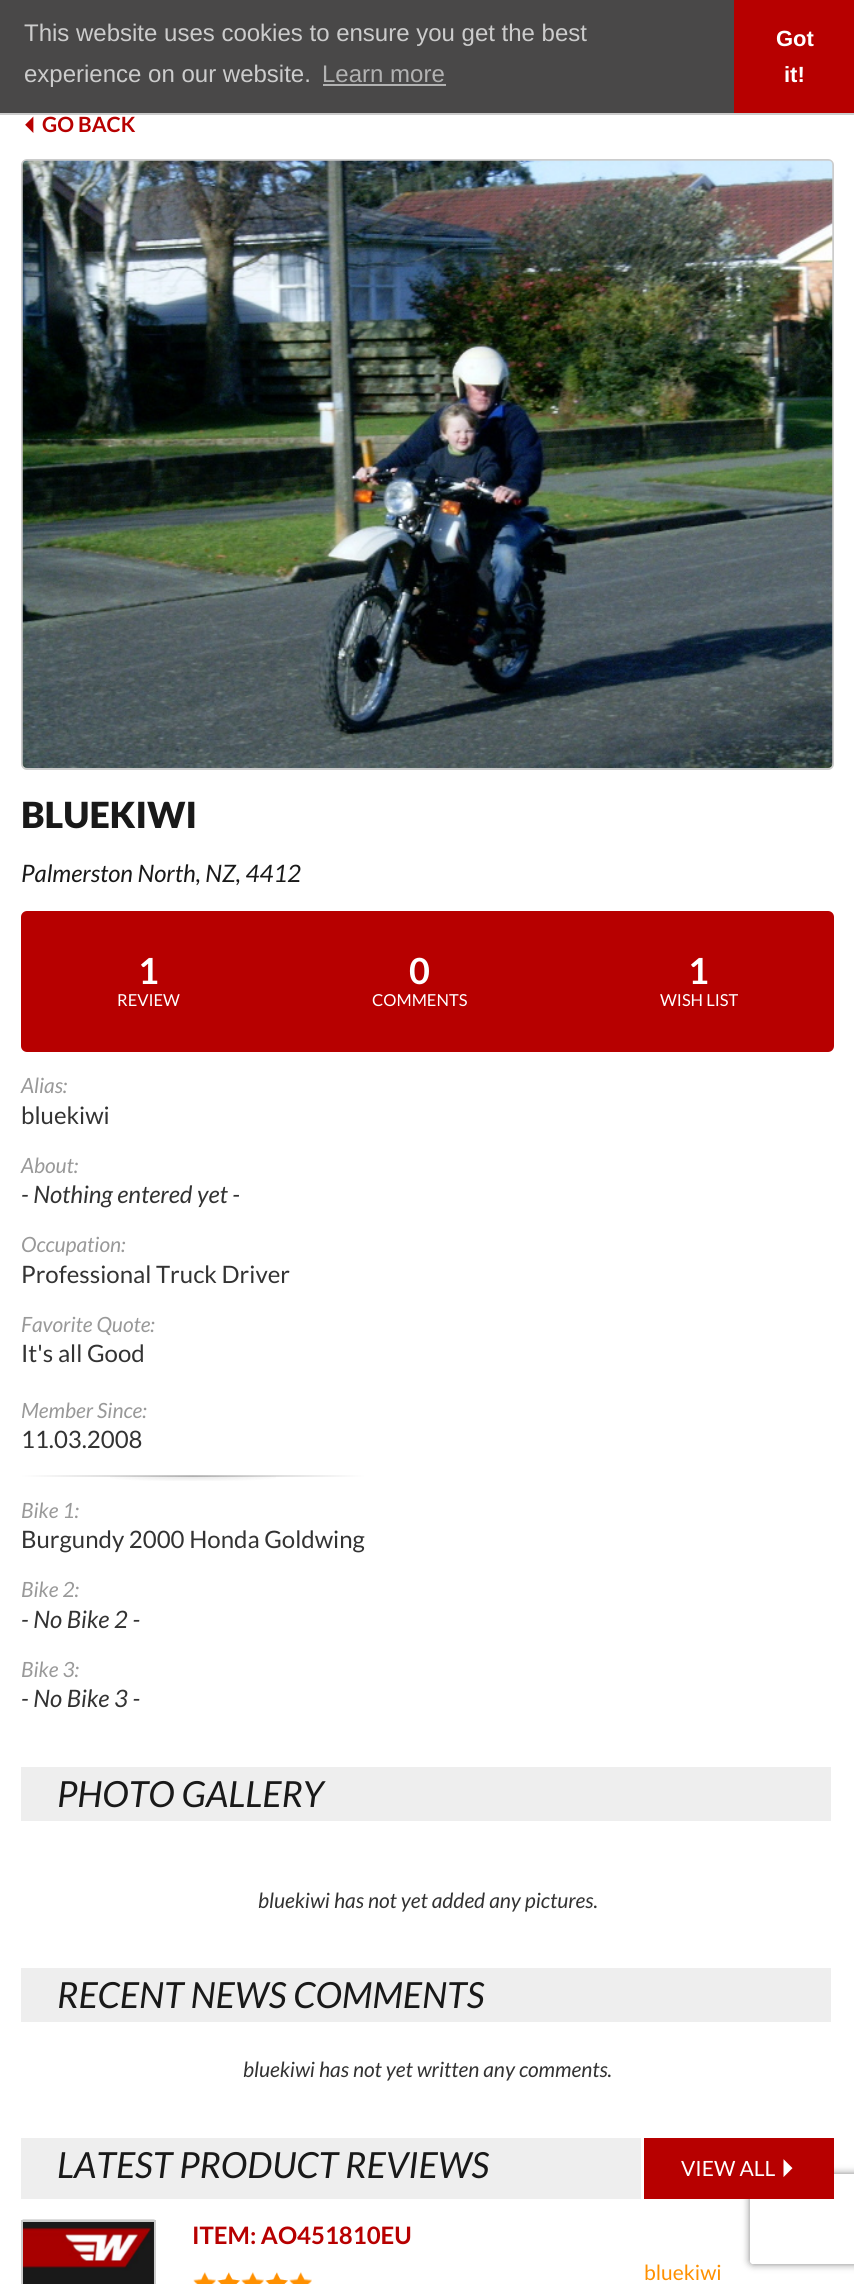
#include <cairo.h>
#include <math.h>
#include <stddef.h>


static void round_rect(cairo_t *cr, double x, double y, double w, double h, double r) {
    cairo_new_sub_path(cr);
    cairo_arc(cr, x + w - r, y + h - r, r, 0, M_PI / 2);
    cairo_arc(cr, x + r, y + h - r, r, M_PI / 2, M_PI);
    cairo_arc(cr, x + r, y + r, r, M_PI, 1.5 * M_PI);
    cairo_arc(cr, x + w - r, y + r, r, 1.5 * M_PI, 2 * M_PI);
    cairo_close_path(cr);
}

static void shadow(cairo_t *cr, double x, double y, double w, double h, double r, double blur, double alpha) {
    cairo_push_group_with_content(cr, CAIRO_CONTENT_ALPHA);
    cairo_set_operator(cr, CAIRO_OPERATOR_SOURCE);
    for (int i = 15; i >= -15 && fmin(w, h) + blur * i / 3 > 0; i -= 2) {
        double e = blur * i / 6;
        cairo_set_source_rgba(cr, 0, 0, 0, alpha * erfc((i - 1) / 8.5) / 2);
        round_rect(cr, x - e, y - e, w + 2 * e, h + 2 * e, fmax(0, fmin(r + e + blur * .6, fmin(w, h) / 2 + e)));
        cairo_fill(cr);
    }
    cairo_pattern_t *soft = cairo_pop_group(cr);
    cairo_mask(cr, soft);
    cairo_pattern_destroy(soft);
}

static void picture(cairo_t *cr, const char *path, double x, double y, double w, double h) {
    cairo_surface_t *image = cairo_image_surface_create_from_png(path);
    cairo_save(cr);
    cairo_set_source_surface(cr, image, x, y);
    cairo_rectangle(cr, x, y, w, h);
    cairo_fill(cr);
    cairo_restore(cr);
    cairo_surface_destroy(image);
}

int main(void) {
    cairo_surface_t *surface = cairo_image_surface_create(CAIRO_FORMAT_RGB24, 854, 2284);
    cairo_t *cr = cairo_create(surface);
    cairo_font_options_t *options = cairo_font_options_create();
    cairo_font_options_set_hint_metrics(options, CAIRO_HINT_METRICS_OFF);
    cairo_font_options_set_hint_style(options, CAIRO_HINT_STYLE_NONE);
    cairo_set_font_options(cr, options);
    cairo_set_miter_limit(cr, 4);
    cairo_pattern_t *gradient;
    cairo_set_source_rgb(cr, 1, 1, 1);
    cairo_paint(cr);
    cairo_set_source_rgb(cr, 0.286, 0.282, 0.282);
    cairo_rectangle(cr, 0, 0, 734, 113);
    cairo_fill(cr);
    cairo_set_source_rgb(cr, 0.8, 0.8, 0.8);
    cairo_rectangle(cr, 0, 113, 854, 2);
    cairo_fill(cr);
    cairo_select_font_face(cr, "Liberation Sans", CAIRO_FONT_SLANT_NORMAL, CAIRO_FONT_WEIGHT_NORMAL);
    cairo_set_font_size(cr, 24);
    cairo_move_to(cr, 24, 41);
    cairo_show_text(cr, "This website uses cookies to ensure you get the best");
    cairo_move_to(cr, 24, 82);
    cairo_show_text(cr, "experience on our website.");
    cairo_set_source_rgb(cr, 0.698, 0.698, 0.698);
    cairo_move_to(cr, 322, 82);
    cairo_show_text(cr, "Learn more");
    cairo_rectangle(cr, 323, 84, 123, 2);
    cairo_fill(cr);
    cairo_set_source_rgb(cr, 0.718, 0, 0);
    cairo_rectangle(cr, 734, 0, 120, 113);
    cairo_fill(cr);
    cairo_select_font_face(cr, "Liberation Sans", CAIRO_FONT_SLANT_NORMAL, CAIRO_FONT_WEIGHT_BOLD);
    cairo_set_font_size(cr, 22);
    cairo_set_source_rgb(cr, 1, 1, 1);
    cairo_move_to(cr, 776, 46);
    cairo_show_text(cr, "Got");
    cairo_move_to(cr, 784, 82);
    cairo_show_text(cr, "it!");
    cairo_select_font_face(cr, "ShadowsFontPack", CAIRO_FONT_SLANT_NORMAL, CAIRO_FONT_WEIGHT_NORMAL);
    cairo_set_font_size(cr, 16.5);
    cairo_set_source_rgb(cr, 0.718, 0, 0);
    cairo_move_to(cr, 21, 132);
    cairo_show_text(cr, "6");
    cairo_select_font_face(cr, "Lato", CAIRO_FONT_SLANT_NORMAL, CAIRO_FONT_WEIGHT_BOLD);
    cairo_set_font_size(cr, 21);
    cairo_move_to(cr, 42, 132);
    cairo_show_text(cr, "GO BACK");
    round_rect(cr, 22, 160, 811, 609, 5);
    cairo_set_source_rgb(cr, 0.8, 0.8, 0.8);
    cairo_stroke(cr);
    picture(cr, "img1.png", 22, 160, 811, 608);
    cairo_select_font_face(cr, "Lato Black", CAIRO_FONT_SLANT_NORMAL, CAIRO_FONT_WEIGHT_NORMAL);
    cairo_set_font_size(cr, 36);
    cairo_set_source_rgb(cr, 0.098, 0.098, 0.098);
    cairo_move_to(cr, 21, 828);
    cairo_show_text(cr, "BLUEKIWI");
    cairo_select_font_face(cr, "Lato", CAIRO_FONT_SLANT_ITALIC, CAIRO_FONT_WEIGHT_NORMAL);
    cairo_set_font_size(cr, 24);
    cairo_move_to(cr, 21, 882);
    cairo_show_text(cr, "Palmerston North, NZ, 4412");
    cairo_set_source_rgb(cr, 0.718, 0, 0);
    round_rect(cr, 21, 911, 813, 141, 6);
    cairo_fill(cr);
    cairo_select_font_face(cr, "Lato", CAIRO_FONT_SLANT_NORMAL, CAIRO_FONT_WEIGHT_BOLD);
    cairo_set_font_size(cr, 36);
    cairo_set_source_rgb(cr, 1, 1, 1);
    cairo_move_to(cr, 138, 984);
    cairo_show_text(cr, "1");
    cairo_select_font_face(cr, "Lato", CAIRO_FONT_SLANT_NORMAL, CAIRO_FONT_WEIGHT_NORMAL);
    cairo_set_font_size(cr, 16.5);
    cairo_move_to(cr, 117, 1006);
    cairo_show_text(cr, "REVIEW");
    cairo_select_font_face(cr, "Lato", CAIRO_FONT_SLANT_NORMAL, CAIRO_FONT_WEIGHT_BOLD);
    cairo_set_font_size(cr, 36);
    cairo_move_to(cr, 409, 984);
    cairo_show_text(cr, "0");
    cairo_select_font_face(cr, "Lato", CAIRO_FONT_SLANT_NORMAL, CAIRO_FONT_WEIGHT_NORMAL);
    cairo_set_font_size(cr, 16.5);
    cairo_move_to(cr, 372, 1006);
    cairo_show_text(cr, "COMMENTS");
    cairo_select_font_face(cr, "Lato", CAIRO_FONT_SLANT_NORMAL, CAIRO_FONT_WEIGHT_BOLD);
    cairo_set_font_size(cr, 36);
    cairo_move_to(cr, 688, 984);
    cairo_show_text(cr, "1");
    cairo_select_font_face(cr, "Lato", CAIRO_FONT_SLANT_NORMAL, CAIRO_FONT_WEIGHT_NORMAL);
    cairo_set_font_size(cr, 16.5);
    cairo_move_to(cr, 660, 1006);
    cairo_show_text(cr, "WISH LIST");
    cairo_select_font_face(cr, "Lato", CAIRO_FONT_SLANT_ITALIC, CAIRO_FONT_WEIGHT_NORMAL);
    cairo_set_font_size(cr, 21);
    cairo_set_source_rgb(cr, 0.6, 0.6, 0.6);
    cairo_move_to(cr, 21, 1093);
    cairo_show_text(cr, "Alias:");
    cairo_select_font_face(cr, "Lato", CAIRO_FONT_SLANT_NORMAL, CAIRO_FONT_WEIGHT_NORMAL);
    cairo_set_font_size(cr, 24);
    cairo_set_source_rgb(cr, 0.2, 0.2, 0.2);
    cairo_move_to(cr, 21, 1124);
    cairo_show_text(cr, "bluekiwi");
    cairo_select_font_face(cr, "Lato", CAIRO_FONT_SLANT_ITALIC, CAIRO_FONT_WEIGHT_NORMAL);
    cairo_set_font_size(cr, 21);
    cairo_set_source_rgb(cr, 0.6, 0.6, 0.6);
    cairo_move_to(cr, 21, 1173);
    cairo_show_text(cr, "About:");
    cairo_set_font_size(cr, 24);
    cairo_set_source_rgb(cr, 0.2, 0.2, 0.2);
    cairo_move_to(cr, 21, 1203);
    cairo_show_text(cr, "- Nothing entered yet -");
    cairo_set_font_size(cr, 21);
    cairo_set_source_rgb(cr, 0.6, 0.6, 0.6);
    cairo_move_to(cr, 21, 1252);
    cairo_show_text(cr, "Occupation:");
    cairo_select_font_face(cr, "Lato", CAIRO_FONT_SLANT_NORMAL, CAIRO_FONT_WEIGHT_NORMAL);
    cairo_set_font_size(cr, 24);
    cairo_set_source_rgb(cr, 0.2, 0.2, 0.2);
    cairo_move_to(cr, 21, 1283);
    cairo_show_text(cr, "Professional Truck Driver");
    cairo_select_font_face(cr, "Lato", CAIRO_FONT_SLANT_ITALIC, CAIRO_FONT_WEIGHT_NORMAL);
    cairo_set_font_size(cr, 21);
    cairo_set_source_rgb(cr, 0.6, 0.6, 0.6);
    cairo_move_to(cr, 21, 1332);
    cairo_show_text(cr, "Favorite Quote:");
    cairo_select_font_face(cr, "Lato", CAIRO_FONT_SLANT_NORMAL, CAIRO_FONT_WEIGHT_NORMAL);
    cairo_set_font_size(cr, 24);
    cairo_set_source_rgb(cr, 0.2, 0.2, 0.2);
    cairo_move_to(cr, 21, 1362);
    cairo_show_text(cr, "It's all Good");
    cairo_select_font_face(cr, "Lato", CAIRO_FONT_SLANT_ITALIC, CAIRO_FONT_WEIGHT_NORMAL);
    cairo_set_font_size(cr, 21);
    cairo_set_source_rgb(cr, 0.6, 0.6, 0.6);
    cairo_move_to(cr, 21, 1418);
    cairo_show_text(cr, "Member Since:");
    cairo_select_font_face(cr, "Lato", CAIRO_FONT_SLANT_NORMAL, CAIRO_FONT_WEIGHT_NORMAL);
    cairo_set_font_size(cr, 24);
    cairo_set_source_rgb(cr, 0.2, 0.2, 0.2);
    cairo_move_to(cr, 21, 1448);
    cairo_show_text(cr, "11.03.2008");
    gradient = cairo_pattern_create_linear(21, 1475, 365, 1475);
    cairo_pattern_add_color_stop_rgba(gradient, 0, 1, 1, 1, 1);
    cairo_pattern_add_color_stop_rgba(gradient, 0.5, 0.753, 0.753, 0.753, 1);
    cairo_pattern_add_color_stop_rgba(gradient, 1, 1, 1, 1, 1);
    cairo_set_source(cr, gradient);
    cairo_pattern_destroy(gradient);
    cairo_rectangle(cr, 21, 1475, 344, 2);
    cairo_fill(cr);
    gradient = cairo_pattern_create_radial(0, 0, 0, 0, 0, 1);
    cairo_pattern_set_matrix(gradient, &(cairo_matrix_t){1.0 / 243, 0, 0, 1.0 / 15, -1.0 * 193 / 243, -1.0 * 1476 / 15});
    cairo_pattern_add_color_stop_rgba(gradient, 0, 0.29, 0.29, 0.29, 0.15);
    cairo_pattern_add_color_stop_rgba(gradient, 0.4, 0.29, 0.29, 0.29, 0);
    cairo_set_source(cr, gradient);
    cairo_pattern_destroy(gradient);
    cairo_rectangle(cr, 110, 1476, 166, 5);
    cairo_fill(cr);
    cairo_select_font_face(cr, "Lato", CAIRO_FONT_SLANT_ITALIC, CAIRO_FONT_WEIGHT_NORMAL);
    cairo_set_font_size(cr, 21);
    cairo_set_source_rgb(cr, 0.6, 0.6, 0.6);
    cairo_move_to(cr, 21, 1518);
    cairo_show_text(cr, "Bike 1:");
    cairo_select_font_face(cr, "Lato", CAIRO_FONT_SLANT_NORMAL, CAIRO_FONT_WEIGHT_NORMAL);
    cairo_set_font_size(cr, 24);
    cairo_set_source_rgb(cr, 0.2, 0.2, 0.2);
    cairo_move_to(cr, 21, 1548);
    cairo_show_text(cr, "Burgundy 2000 Honda Goldwing");
    cairo_select_font_face(cr, "Lato", CAIRO_FONT_SLANT_ITALIC, CAIRO_FONT_WEIGHT_NORMAL);
    cairo_set_font_size(cr, 21);
    cairo_set_source_rgb(cr, 0.6, 0.6, 0.6);
    cairo_move_to(cr, 21, 1597);
    cairo_show_text(cr, "Bike 2:");
    cairo_set_font_size(cr, 24);
    cairo_set_source_rgb(cr, 0.2, 0.2, 0.2);
    cairo_move_to(cr, 21, 1628);
    cairo_show_text(cr, "- No Bike 2 -");
    cairo_set_font_size(cr, 21);
    cairo_set_source_rgb(cr, 0.6, 0.6, 0.6);
    cairo_move_to(cr, 21, 1677);
    cairo_show_text(cr, "Bike 3:");
    cairo_set_font_size(cr, 24);
    cairo_set_source_rgb(cr, 0.2, 0.2, 0.2);
    cairo_move_to(cr, 21, 1707);
    cairo_show_text(cr, "- No Bike 3 -");
    cairo_set_source_rgb(cr, 0.933, 0.933, 0.933);
    cairo_rectangle(cr, 21, 1767, 810, 54);
    cairo_fill(cr);
    cairo_set_font_size(cr, 36);
    cairo_set_source_rgb(cr, 0.098, 0.098, 0.098);
    cairo_move_to(cr, 57, 1807);
    cairo_show_text(cr, "PHOTO GALLERY");
    cairo_set_font_size(cr, 21);
    cairo_set_source_rgb(cr, 0.2, 0.2, 0.2);
    cairo_move_to(cr, 258, 1908);
    cairo_show_text(cr, "bluekiwi has not yet added any pictures.");
    cairo_set_source_rgb(cr, 0.933, 0.933, 0.933);
    cairo_rectangle(cr, 21, 1968, 810, 54);
    cairo_fill(cr);
    cairo_set_font_size(cr, 36);
    cairo_set_source_rgb(cr, 0.098, 0.098, 0.098);
    cairo_move_to(cr, 57, 2008);
    cairo_show_text(cr, "RECENT NEWS COMMENTS");
    cairo_set_font_size(cr, 21);
    cairo_set_source_rgb(cr, 0.2, 0.2, 0.2);
    cairo_move_to(cr, 243, 2077);
    cairo_show_text(cr, "bluekiwi has not yet written any comments.");
    cairo_set_source_rgb(cr, 0.933, 0.933, 0.933);
    cairo_rectangle(cr, 21, 2138, 620, 61);
    cairo_fill(cr);
    cairo_set_font_size(cr, 36);
    cairo_set_source_rgb(cr, 0.098, 0.098, 0.098);
    cairo_move_to(cr, 57, 2178);
    cairo_show_text(cr, "LATEST PRODUCT REVIEWS");
    cairo_save(cr);
    cairo_set_fill_rule(cr, CAIRO_FILL_RULE_EVEN_ODD);
    cairo_new_path(cr);
    cairo_move_to(cr, 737, 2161);
    cairo_line_to(cr, 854, 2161);
    cairo_line_to(cr, 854, 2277);
    cairo_line_to(cr, 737, 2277);
    cairo_close_path(cr);
    cairo_move_to(cr, 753, 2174);
    cairo_line_to(cr, 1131, 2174);
    cairo_curve_to(cr, 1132.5, 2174, 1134, 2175.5, 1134, 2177);
    cairo_line_to(cr, 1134, 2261);
    cairo_curve_to(cr, 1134, 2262.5, 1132.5, 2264, 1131, 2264);
    cairo_line_to(cr, 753, 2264);
    cairo_curve_to(cr, 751.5, 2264, 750, 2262.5, 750, 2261);
    cairo_line_to(cr, 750, 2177);
    cairo_curve_to(cr, 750, 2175.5, 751.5, 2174, 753, 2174);
    cairo_close_path(cr);
    cairo_clip(cr);
    cairo_set_source_rgb(cr, 0.502, 0.502, 0.502);
    shadow(cr, 750, 2174, 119, 90, 3, 4, 1);
    cairo_restore(cr);
    cairo_set_source_rgb(cr, 0.718, 0, 0);
    cairo_rectangle(cr, 644, 2138, 190, 61);
    cairo_fill(cr);
    cairo_select_font_face(cr, "Lato", CAIRO_FONT_SLANT_NORMAL, CAIRO_FONT_WEIGHT_NORMAL);
    cairo_set_font_size(cr, 21);
    cairo_set_source_rgb(cr, 1, 1, 1);
    cairo_move_to(cr, 681, 2176);
    cairo_show_text(cr, "VIEW ALL");
    cairo_select_font_face(cr, "ShadowsFontPack", CAIRO_FONT_SLANT_NORMAL, CAIRO_FONT_WEIGHT_NORMAL);
    cairo_set_font_size(cr, 18);
    cairo_move_to(cr, 779, 2176);
    cairo_show_text(cr, "7");
    picture(cr, "img2.png", 22, 2219, 133, 65);
    cairo_rectangle(cr, 22, 2221, 133, 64);
    cairo_set_source_rgb(cr, 0.8, 0.8, 0.8);
    cairo_stroke(cr);
    cairo_select_font_face(cr, "Lato", CAIRO_FONT_SLANT_NORMAL, CAIRO_FONT_WEIGHT_BOLD);
    cairo_set_font_size(cr, 24);
    cairo_set_source_rgb(cr, 0.718, 0, 0);
    cairo_move_to(cr, 192, 2244);
    cairo_show_text(cr, "ITEM: AO451810EU");
    picture(cr, "img3.png", 193, 2272, 23, 12);
    picture(cr, "img4.png", 217, 2272, 23, 12);
    picture(cr, "img3.png", 241, 2272, 23, 12);
    picture(cr, "img5.png", 265, 2272, 23, 12);
    picture(cr, "img3.png", 289, 2272, 23, 12);
    cairo_select_font_face(cr, "Lato", CAIRO_FONT_SLANT_NORMAL, CAIRO_FONT_WEIGHT_NORMAL);
    cairo_set_font_size(cr, 21);
    cairo_set_source_rgb(cr, 1, 0.565, 0);
    cairo_move_to(cr, 644, 2280);
    cairo_show_text(cr, "bluekiwi");
    cairo_surface_write_to_png(surface, "page.png");
    cairo_font_options_destroy(options);
    cairo_destroy(cr);
    cairo_surface_destroy(surface);
    return 0;
}
